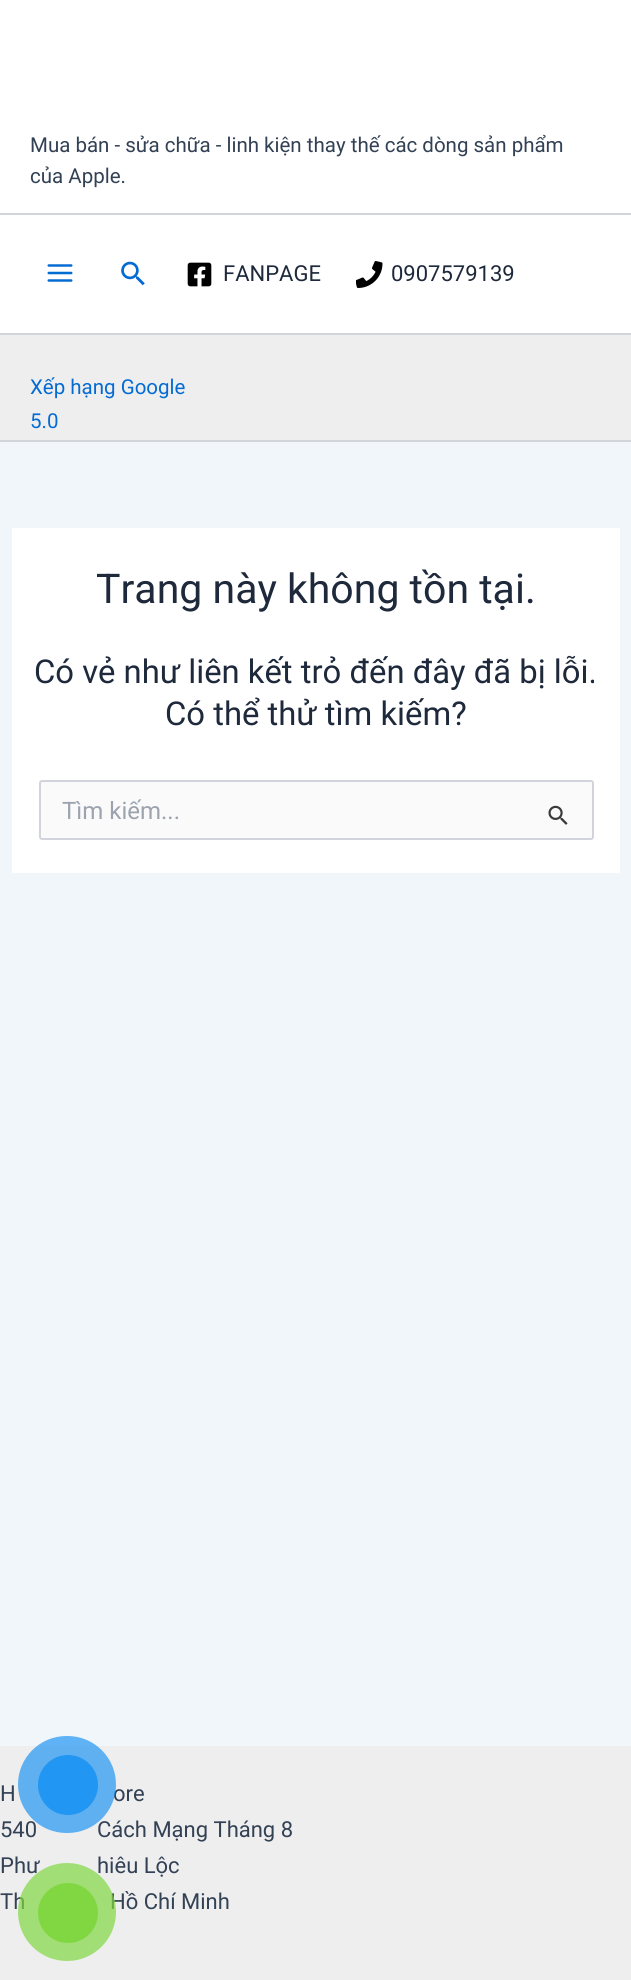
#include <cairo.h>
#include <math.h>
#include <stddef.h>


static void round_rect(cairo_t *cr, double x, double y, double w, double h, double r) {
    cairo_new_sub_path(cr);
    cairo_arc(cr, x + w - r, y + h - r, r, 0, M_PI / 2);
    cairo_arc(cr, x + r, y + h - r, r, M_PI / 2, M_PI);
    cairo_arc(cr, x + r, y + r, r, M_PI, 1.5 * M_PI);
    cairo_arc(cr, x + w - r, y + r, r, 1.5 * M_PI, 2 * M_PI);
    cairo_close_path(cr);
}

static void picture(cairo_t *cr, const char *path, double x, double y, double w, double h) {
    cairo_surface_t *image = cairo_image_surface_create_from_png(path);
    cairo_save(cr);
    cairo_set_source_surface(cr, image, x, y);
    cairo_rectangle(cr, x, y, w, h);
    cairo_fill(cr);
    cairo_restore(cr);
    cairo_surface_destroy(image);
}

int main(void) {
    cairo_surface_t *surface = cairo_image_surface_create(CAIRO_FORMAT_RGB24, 631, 1980);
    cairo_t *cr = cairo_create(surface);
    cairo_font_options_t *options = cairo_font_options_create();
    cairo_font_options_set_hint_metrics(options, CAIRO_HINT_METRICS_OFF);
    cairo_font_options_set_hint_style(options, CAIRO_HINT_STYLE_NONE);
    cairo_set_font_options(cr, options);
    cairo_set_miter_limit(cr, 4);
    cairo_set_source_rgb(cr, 0.941, 0.961, 0.98);
    cairo_paint(cr);
    cairo_set_source_rgb(cr, 1, 1, 1);
    cairo_rectangle(cr, 0, 0, 631, 213);
    cairo_fill(cr);
    cairo_set_source_rgb(cr, 0.82, 0.835, 0.859);
    cairo_rectangle(cr, 0, 213, 631, 2);
    cairo_fill(cr);
    cairo_select_font_face(cr, "Roboto", CAIRO_FONT_SLANT_NORMAL, CAIRO_FONT_WEIGHT_NORMAL);
    cairo_set_font_size(cr, 20.5);
    cairo_set_source_rgb(cr, 0.2, 0.255, 0.333);
    cairo_move_to(cr, 30, 152);
    cairo_show_text(cr, "Mua bán - sửa chữa - linh kiện thay thế các dòng sản phẩm");
    cairo_move_to(cr, 30, 183);
    cairo_show_text(cr, "của Apple.");
    cairo_set_source_rgb(cr, 1, 1, 1);
    cairo_rectangle(cr, 0, 215, 631, 118);
    cairo_fill(cr);
    cairo_set_source_rgb(cr, 0.82, 0.835, 0.859);
    cairo_rectangle(cr, 0, 333, 631, 2);
    cairo_fill(cr);
    picture(cr, "img1.png", 47, 264, 26, 18);
    picture(cr, "img2.png", 121, 261, 24, 25);
    picture(cr, "img3.png", 187, 262, 25, 25);
    cairo_set_font_size(cr, 22);
    cairo_set_source_rgb(cr, 0.118, 0.161, 0.231);
    cairo_move_to(cr, 223, 281);
    cairo_show_text(cr, "FANPAGE");
    picture(cr, "img4.png", 356, 261, 27, 27);
    cairo_move_to(cr, 391, 281);
    cairo_show_text(cr, "0907579139");
    cairo_set_source_rgb(cr, 0.933, 0.933, 0.933);
    cairo_rectangle(cr, 0, 335, 631, 105);
    cairo_fill(cr);
    cairo_set_source_rgb(cr, 0.82, 0.835, 0.859);
    cairo_rectangle(cr, 0, 440, 631, 2);
    cairo_fill(cr);
    cairo_set_font_size(cr, 20.5);
    cairo_set_source_rgb(cr, 0.016, 0.42, 0.824);
    cairo_move_to(cr, 30, 394);
    cairo_show_text(cr, "Xếp hạng Google");
    cairo_move_to(cr, 30, 428);
    cairo_show_text(cr, "5.0");
    cairo_set_source_rgb(cr, 1, 1, 1);
    cairo_rectangle(cr, 12, 528, 608, 345);
    cairo_fill(cr);
    cairo_set_font_size(cr, 41);
    cairo_set_source_rgb(cr, 0.118, 0.161, 0.231);
    cairo_move_to(cr, 96, 603);
    cairo_show_text(cr, "Trang này không tồn tại.");
    cairo_set_font_size(cr, 32.8);
    cairo_move_to(cr, 34, 683);
    cairo_show_text(cr, "Có vẻ như liên kết trỏ đến đây đã bị lỗi.");
    cairo_move_to(cr, 165, 725);
    cairo_show_text(cr, "Có thể thử tìm kiếm?");
    cairo_set_source_rgb(cr, 0.98, 0.98, 0.98);
    round_rect(cr, 40, 781, 553, 58, 2);
    cairo_fill_preserve(cr);
    cairo_set_source_rgb(cr, 0.82, 0.835, 0.859);
    cairo_stroke(cr);
    cairo_set_font_size(cr, 24);
    cairo_set_source_rgb(cr, 0.612, 0.639, 0.686);
    cairo_move_to(cr, 62, 819);
    cairo_show_text(cr, "Tìm kiếm...");
    picture(cr, "img5.png", 548, 805, 20, 20);
    cairo_set_source_rgb(cr, 0.933, 0.933, 0.933);
    cairo_rectangle(cr, 0, 1746, 631, 234);
    cairo_fill(cr);
    cairo_set_font_size(cr, 22);
    cairo_set_source_rgb(cr, 0.2, 0.255, 0.333);
    cairo_move_to(cr, 0, 1801);
    cairo_show_text(cr, "H");
    cairo_move_to(cr, 113, 1801);
    cairo_show_text(cr, "ore");
    cairo_move_to(cr, 0, 1837);
    cairo_show_text(cr, "540");
    cairo_move_to(cr, 97, 1837);
    cairo_show_text(cr, "Cách Mạng Tháng 8");
    cairo_move_to(cr, 0, 1873);
    cairo_show_text(cr, "Phư");
    cairo_move_to(cr, 97, 1873);
    cairo_show_text(cr, "hiêu Lộc");
    cairo_move_to(cr, 0, 1909);
    cairo_show_text(cr, "Th");
    cairo_move_to(cr, 110, 1909);
    cairo_show_text(cr, "Hồ Chí Minh");
    cairo_set_source_rgba(cr, 0.129, 0.588, 0.953, 0.7);
    round_rect(cr, 18, 1736, 98, 97, 48.5);
    cairo_fill(cr);
    cairo_set_source_rgb(cr, 0.129, 0.588, 0.953);
    cairo_arc(cr, 68, 1785, 30, 0, 2 * M_PI);
    cairo_fill(cr);
    cairo_set_source_rgba(cr, 0.506, 0.843, 0.259, 0.7);
    cairo_arc(cr, 67, 1912, 49, 0, 2 * M_PI);
    cairo_fill(cr);
    cairo_set_source_rgb(cr, 0.506, 0.843, 0.259);
    cairo_arc(cr, 68, 1913, 30, 0, 2 * M_PI);
    cairo_fill(cr);
    cairo_surface_write_to_png(surface, "page.png");
    cairo_font_options_destroy(options);
    cairo_destroy(cr);
    cairo_surface_destroy(surface);
    return 0;
}
